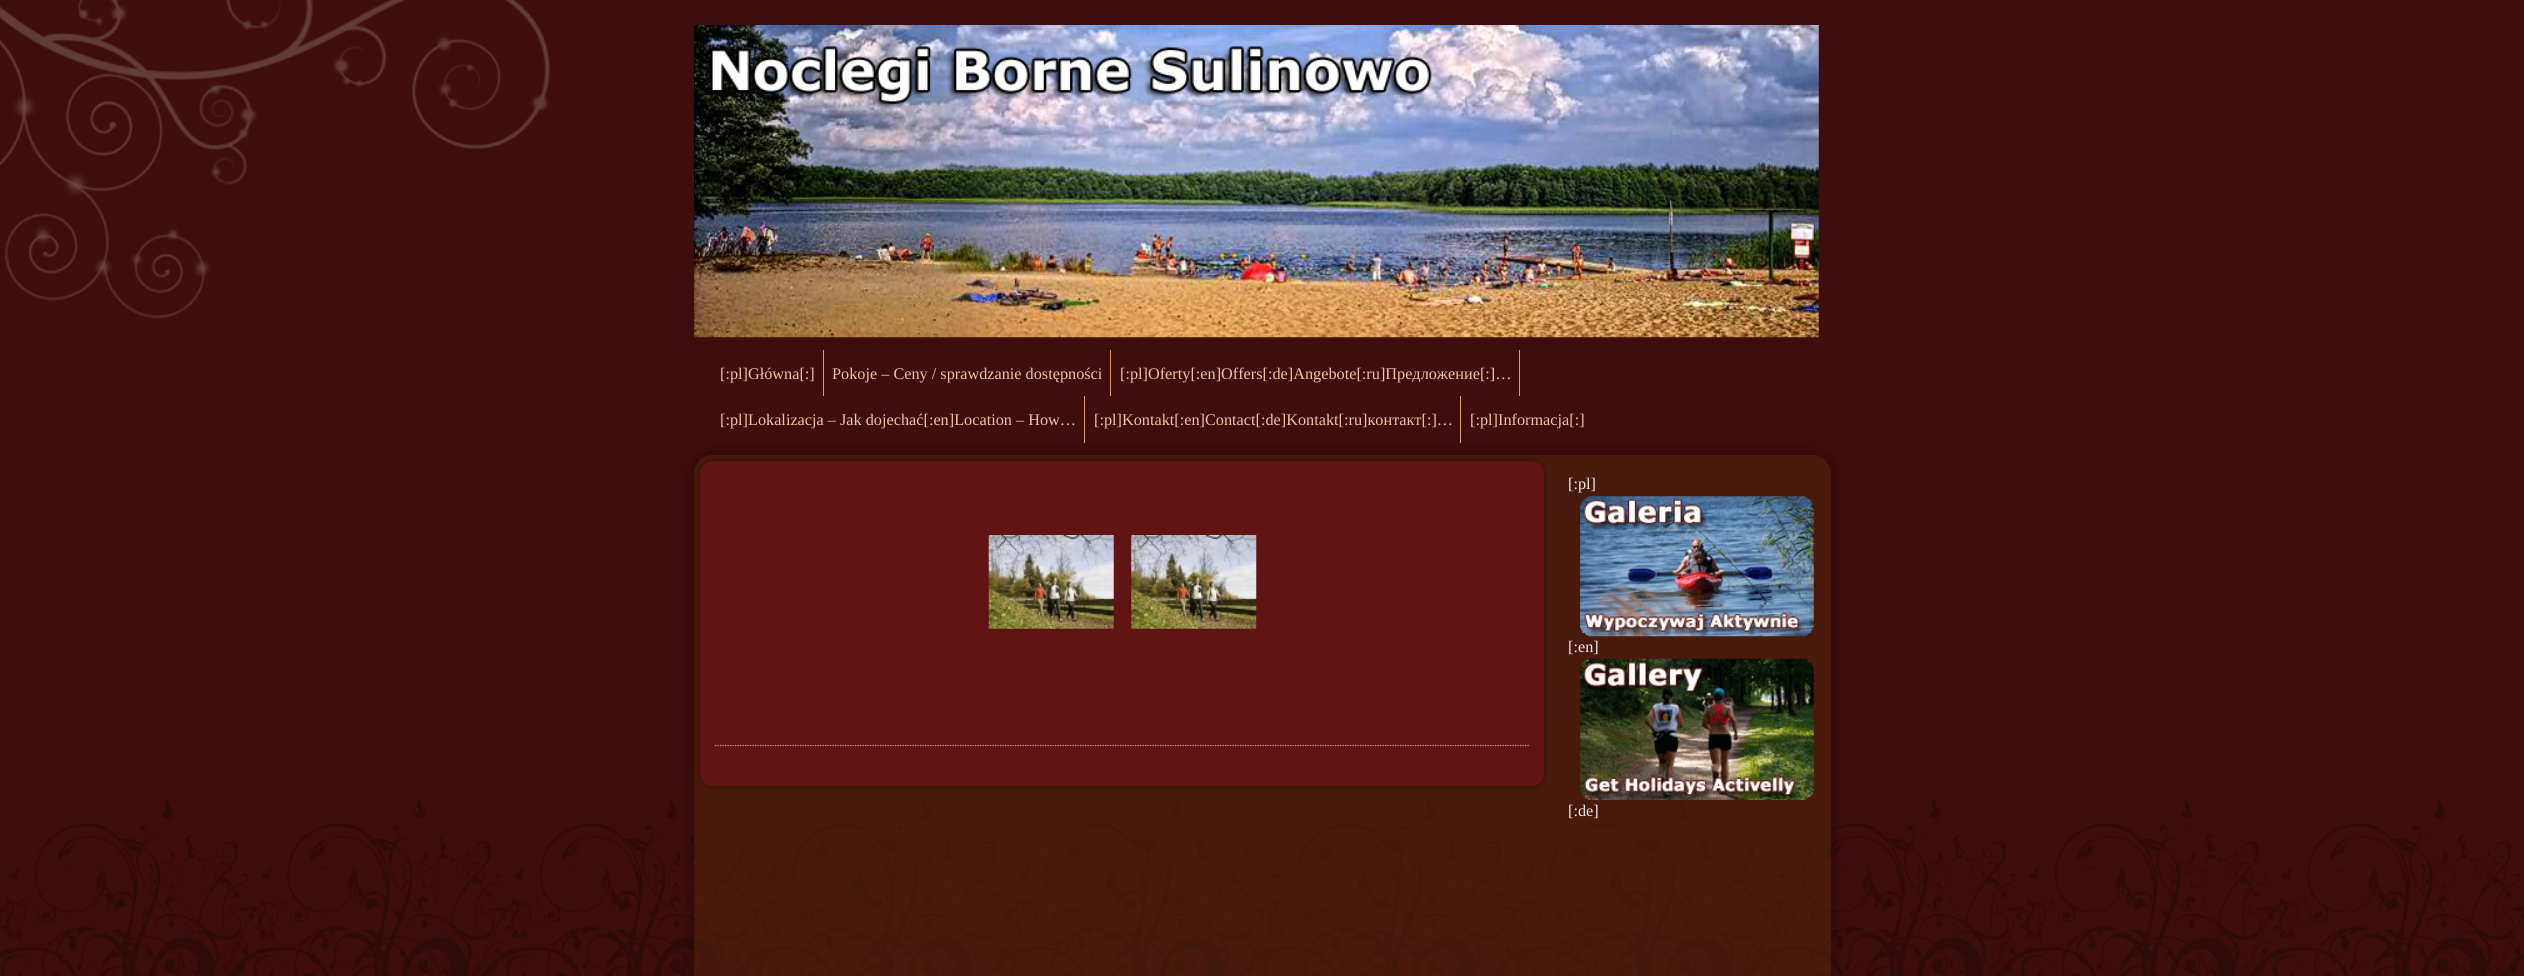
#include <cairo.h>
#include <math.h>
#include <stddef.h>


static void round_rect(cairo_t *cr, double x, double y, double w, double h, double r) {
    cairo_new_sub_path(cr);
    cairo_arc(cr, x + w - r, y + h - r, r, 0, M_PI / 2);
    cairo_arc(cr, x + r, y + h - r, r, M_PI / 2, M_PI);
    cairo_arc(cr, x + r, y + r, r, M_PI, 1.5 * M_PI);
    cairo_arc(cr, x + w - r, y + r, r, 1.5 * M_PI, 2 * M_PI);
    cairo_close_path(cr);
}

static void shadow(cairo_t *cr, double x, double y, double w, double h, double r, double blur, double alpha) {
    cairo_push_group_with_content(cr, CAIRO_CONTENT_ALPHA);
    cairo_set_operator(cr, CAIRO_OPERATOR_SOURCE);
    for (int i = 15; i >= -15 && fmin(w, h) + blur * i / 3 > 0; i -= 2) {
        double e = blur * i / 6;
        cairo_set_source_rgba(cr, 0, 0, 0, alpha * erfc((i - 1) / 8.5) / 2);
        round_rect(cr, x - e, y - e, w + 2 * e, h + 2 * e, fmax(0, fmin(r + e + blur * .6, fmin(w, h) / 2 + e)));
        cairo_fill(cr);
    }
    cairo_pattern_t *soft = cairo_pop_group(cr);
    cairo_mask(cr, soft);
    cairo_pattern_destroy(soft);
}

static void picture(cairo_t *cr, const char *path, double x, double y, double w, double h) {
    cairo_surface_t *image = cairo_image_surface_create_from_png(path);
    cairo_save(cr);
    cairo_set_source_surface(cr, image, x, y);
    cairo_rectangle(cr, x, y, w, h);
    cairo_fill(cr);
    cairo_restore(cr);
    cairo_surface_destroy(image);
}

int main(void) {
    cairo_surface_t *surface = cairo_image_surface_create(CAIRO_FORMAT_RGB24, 2524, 976);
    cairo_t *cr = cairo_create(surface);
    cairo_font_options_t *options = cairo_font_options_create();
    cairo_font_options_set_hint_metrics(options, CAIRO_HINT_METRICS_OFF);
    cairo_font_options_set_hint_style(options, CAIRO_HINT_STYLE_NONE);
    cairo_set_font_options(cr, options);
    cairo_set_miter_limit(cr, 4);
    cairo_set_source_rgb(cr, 0.247, 0.051, 0.051);
    cairo_paint(cr);
    picture(cr, "img1.png", 0, 0, 2524, 976);
    picture(cr, "img2.png", 693, 25, 1126, 313);
    cairo_set_source_rgb(cr, 0.859, 0.624, 0.42);
    cairo_rectangle(cr, 823, 350, 1, 46);
    cairo_fill(cr);
    cairo_select_font_face(cr, "Liberation Serif", CAIRO_FONT_SLANT_NORMAL, CAIRO_FONT_WEIGHT_NORMAL);
    cairo_set_font_size(cr, 16.25);
    cairo_set_source_rgb(cr, 0.949, 0.757, 0.651);
    cairo_move_to(cr, 720, 379);
    cairo_show_text(cr, "[:pl]Główna[:]");
    cairo_set_source_rgb(cr, 0.859, 0.624, 0.42);
    cairo_rectangle(cr, 1110, 350, 1, 46);
    cairo_fill(cr);
    cairo_set_source_rgb(cr, 0.949, 0.757, 0.651);
    cairo_move_to(cr, 832, 379);
    cairo_show_text(cr, "Pokoje – Ceny / sprawdzanie dostępności");
    cairo_set_source_rgb(cr, 0.859, 0.624, 0.42);
    cairo_rectangle(cr, 1519, 350, 1, 46);
    cairo_fill(cr);
    cairo_set_source_rgb(cr, 0.949, 0.757, 0.651);
    cairo_move_to(cr, 1120, 379);
    cairo_show_text(cr, "[:pl]Oferty[:en]Offers[:de]Angebote[:ru]Предложение[:]…");
    cairo_save(cr);
    cairo_set_fill_rule(cr, CAIRO_FILL_RULE_EVEN_ODD);
    cairo_new_path(cr);
    cairo_move_to(cr, 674, 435);
    cairo_line_to(cr, 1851, 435);
    cairo_line_to(cr, 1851, 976);
    cairo_line_to(cr, 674, 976);
    cairo_close_path(cr);
    cairo_move_to(cr, 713, 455);
    cairo_line_to(cr, 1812, 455);
    cairo_curve_to(cr, 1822.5, 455, 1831, 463.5, 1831, 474);
    cairo_line_to(cr, 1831, 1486);
    cairo_curve_to(cr, 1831, 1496.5, 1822.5, 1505, 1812, 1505);
    cairo_line_to(cr, 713, 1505);
    cairo_curve_to(cr, 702.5, 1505, 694, 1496.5, 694, 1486);
    cairo_line_to(cr, 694, 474);
    cairo_curve_to(cr, 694, 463.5, 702.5, 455, 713, 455);
    cairo_close_path(cr);
    cairo_clip(cr);
    cairo_set_source_rgb(cr, 0, 0, 0);
    shadow(cr, 689, 450, 1147, 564, 24, 4.5, 0.2);
    cairo_restore(cr);
    cairo_set_source_rgb(cr, 0.859, 0.624, 0.42);
    cairo_rectangle(cr, 1084, 396, 1, 47);
    cairo_fill(cr);
    cairo_set_source_rgb(cr, 0.949, 0.757, 0.651);
    cairo_move_to(cr, 720, 425);
    cairo_show_text(cr, "[:pl]Lokalizacja – Jak dojechać[:en]Location – How…");
    cairo_set_source_rgb(cr, 0.859, 0.624, 0.42);
    cairo_rectangle(cr, 1460, 396, 1, 47);
    cairo_fill(cr);
    cairo_set_source_rgb(cr, 0.949, 0.757, 0.651);
    cairo_move_to(cr, 1094, 425);
    cairo_show_text(cr, "[:pl]Kontakt[:en]Contact[:de]Kontakt[:ru]контакт[:]…");
    cairo_move_to(cr, 1470, 425);
    cairo_show_text(cr, "[:pl]Informacja[:]");
    cairo_set_source_rgba(cr, 0.329, 0.149, 0.051, 0.5);
    round_rect(cr, 694, 455, 1137, 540, 19);
    cairo_fill(cr);
    cairo_set_source_rgb(cr, 0, 0, 0);
    shadow(cr, 698, 459, 848, 330, 15, 2, 0.2);
    cairo_set_source_rgb(cr, 0.376, 0.082, 0.082);
    round_rect(cr, 700, 461, 844, 325, 13);
    cairo_fill(cr);
    picture(cr, "img3.png", 988, 535, 126, 94);
    picture(cr, "img4.png", 1131, 535, 126, 94);
    cairo_new_path(cr);
    cairo_move_to(cr, 715, 745.5);
    cairo_line_to(cr, 1529, 745.5);
    cairo_set_source_rgb(cr, 0.914, 0.596, 0.427);
    cairo_set_line_width(cr, 1.2);
    cairo_set_dash(cr, (double[]){1.25, 1.25}, 2, 0);
    cairo_stroke(cr);
    cairo_set_source_rgb(cr, 0.929, 0.929, 0.929);
    cairo_move_to(cr, 1568, 489);
    cairo_show_text(cr, "[:pl]");
    picture(cr, "img5.png", 1580, 496, 234, 141);
    cairo_move_to(cr, 1568, 652);
    cairo_show_text(cr, "[:en]");
    picture(cr, "img6.png", 1580, 658, 234, 142);
    cairo_move_to(cr, 1568, 816);
    cairo_show_text(cr, "[:de]");
    cairo_surface_write_to_png(surface, "page.png");
    cairo_font_options_destroy(options);
    cairo_destroy(cr);
    cairo_surface_destroy(surface);
    return 0;
}
